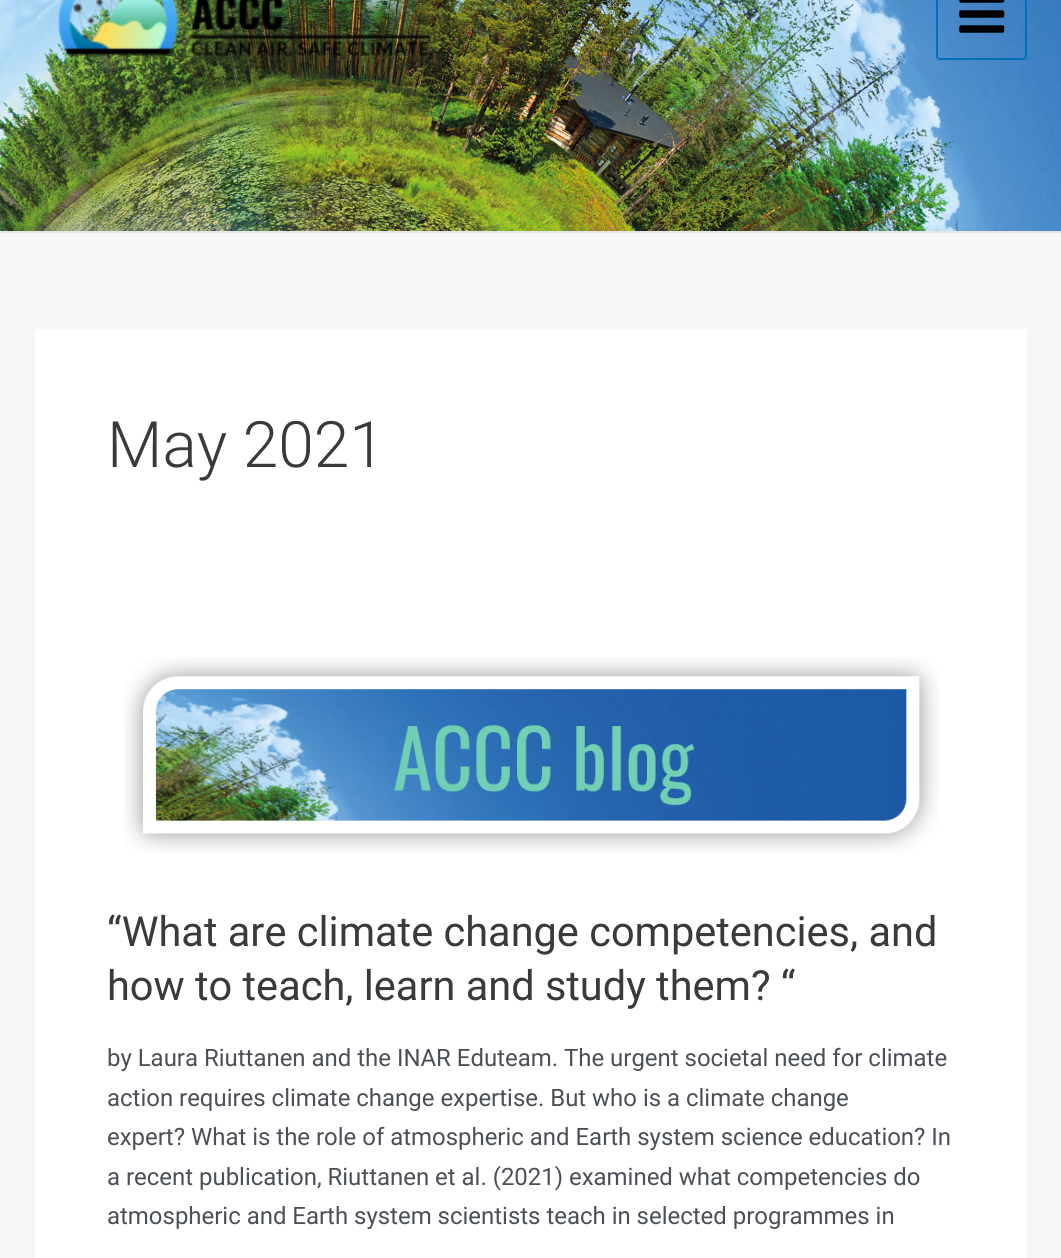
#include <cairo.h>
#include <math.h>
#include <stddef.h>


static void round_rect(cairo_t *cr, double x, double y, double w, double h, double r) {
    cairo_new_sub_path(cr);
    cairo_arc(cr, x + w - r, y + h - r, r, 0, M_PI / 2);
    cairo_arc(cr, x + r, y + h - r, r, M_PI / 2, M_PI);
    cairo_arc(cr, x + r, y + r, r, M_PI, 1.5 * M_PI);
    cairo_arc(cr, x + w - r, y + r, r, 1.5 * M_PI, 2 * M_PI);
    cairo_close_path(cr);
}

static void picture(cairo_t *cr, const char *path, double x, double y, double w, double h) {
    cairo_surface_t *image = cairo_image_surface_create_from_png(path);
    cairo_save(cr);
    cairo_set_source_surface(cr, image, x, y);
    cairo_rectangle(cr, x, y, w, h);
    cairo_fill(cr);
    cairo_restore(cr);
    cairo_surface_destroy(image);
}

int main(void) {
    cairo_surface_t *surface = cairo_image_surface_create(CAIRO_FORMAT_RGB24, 1061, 1258);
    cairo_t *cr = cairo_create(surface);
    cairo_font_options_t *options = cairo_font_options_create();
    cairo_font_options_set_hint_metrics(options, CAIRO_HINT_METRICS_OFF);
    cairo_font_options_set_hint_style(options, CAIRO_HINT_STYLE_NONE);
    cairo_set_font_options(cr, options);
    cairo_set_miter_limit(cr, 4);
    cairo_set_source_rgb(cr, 0.961, 0.961, 0.961);
    cairo_paint(cr);
    picture(cr, "img1.png", 0, 0, 1061, 231);
    cairo_set_source_rgb(cr, 0.898, 0.898, 0.898);
    cairo_rectangle(cr, 0, 231, 1061, 2);
    cairo_fill(cr);
    picture(cr, "img2.png", 57, 0, 377, 57);
    round_rect(cr, 937, -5, 89, 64, 3);
    cairo_set_source_rgb(cr, 0.004, 0.439, 0.725);
    cairo_stroke(cr);
    picture(cr, "img3.png", 959, 0, 46, 33);
    cairo_set_source_rgb(cr, 1, 1, 1);
    cairo_rectangle(cr, 35, 329, 992, 929);
    cairo_fill(cr);
    cairo_select_font_face(cr, "Roboto Light", CAIRO_FONT_SLANT_NORMAL, CAIRO_FONT_WEIGHT_NORMAL);
    cairo_set_font_size(cr, 64);
    cairo_set_source_rgb(cr, 0.227, 0.227, 0.227);
    cairo_move_to(cr, 107, 467);
    cairo_show_text(cr, "May 2021");
    picture(cr, "img4.png", 124, 657, 815, 196);
    cairo_select_font_face(cr, "Roboto", CAIRO_FONT_SLANT_NORMAL, CAIRO_FONT_WEIGHT_NORMAL);
    cairo_set_font_size(cr, 41.5);
    cairo_move_to(cr, 107, 946);
    cairo_show_text(cr, "“What are climate change competencies, and");
    cairo_move_to(cr, 107, 1000);
    cairo_show_text(cr, "how to teach, learn and study them? “");
    cairo_set_font_size(cr, 23.95);
    cairo_set_source_rgb(cr, 0.294, 0.31, 0.345);
    cairo_move_to(cr, 107, 1066);
    cairo_show_text(cr, "by Laura Riuttanen and the INAR Eduteam. The urgent societal need for climate");
    cairo_move_to(cr, 107, 1106);
    cairo_show_text(cr, "action requires climate change expertise. But who is a climate change");
    cairo_move_to(cr, 107, 1145);
    cairo_show_text(cr, "expert? What is the role of atmospheric and Earth system science education? In");
    cairo_move_to(cr, 107, 1185);
    cairo_show_text(cr, "a recent publication, Riuttanen et al. (2021) examined what competencies do");
    cairo_move_to(cr, 107, 1224);
    cairo_show_text(cr, "atmospheric and Earth system scientists teach in selected programmes in");
    cairo_surface_write_to_png(surface, "page.png");
    cairo_font_options_destroy(options);
    cairo_destroy(cr);
    cairo_surface_destroy(surface);
    return 0;
}
